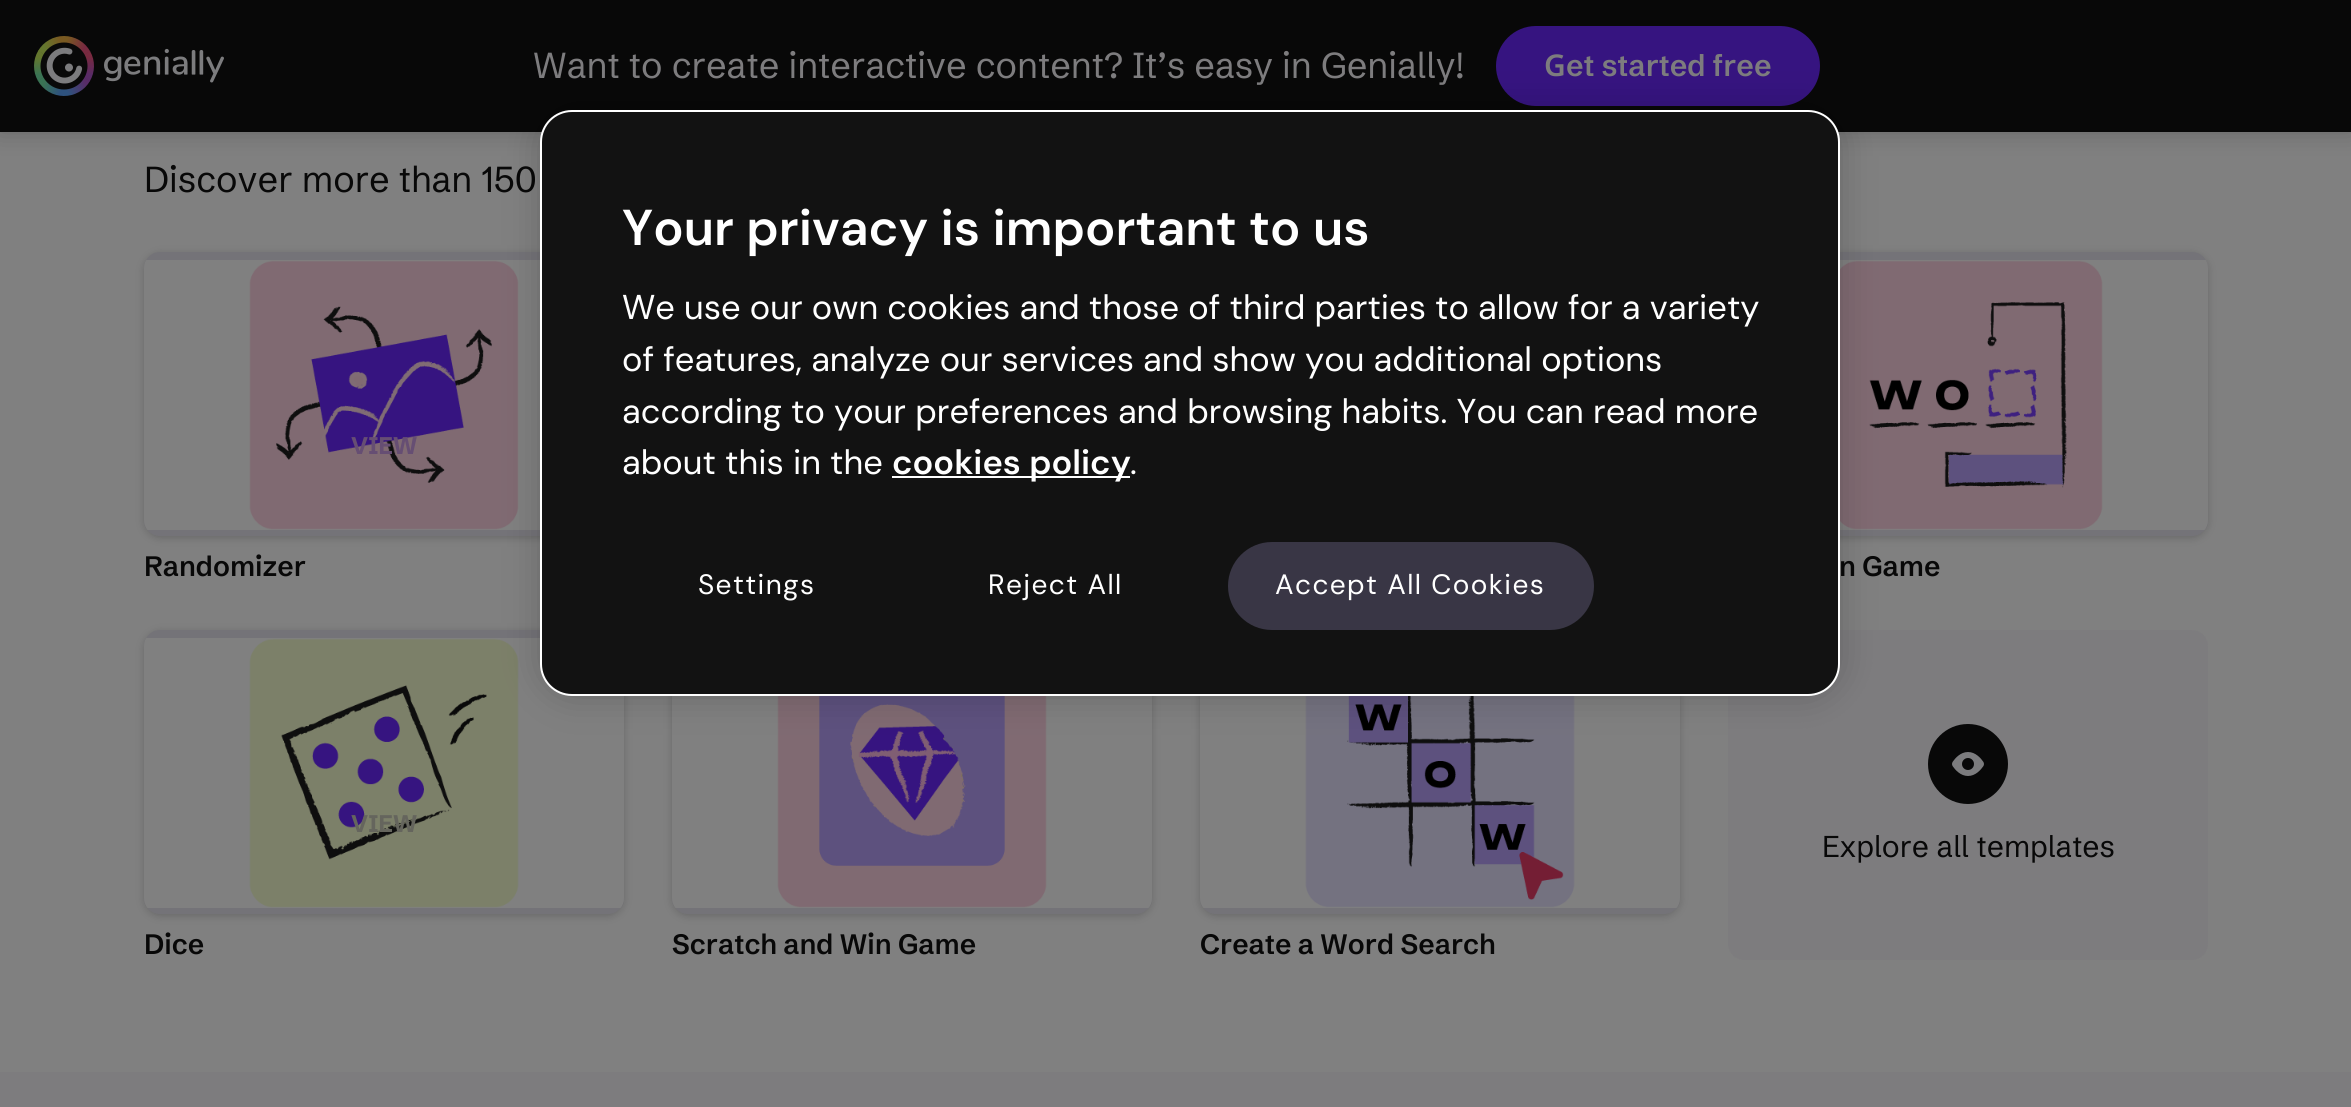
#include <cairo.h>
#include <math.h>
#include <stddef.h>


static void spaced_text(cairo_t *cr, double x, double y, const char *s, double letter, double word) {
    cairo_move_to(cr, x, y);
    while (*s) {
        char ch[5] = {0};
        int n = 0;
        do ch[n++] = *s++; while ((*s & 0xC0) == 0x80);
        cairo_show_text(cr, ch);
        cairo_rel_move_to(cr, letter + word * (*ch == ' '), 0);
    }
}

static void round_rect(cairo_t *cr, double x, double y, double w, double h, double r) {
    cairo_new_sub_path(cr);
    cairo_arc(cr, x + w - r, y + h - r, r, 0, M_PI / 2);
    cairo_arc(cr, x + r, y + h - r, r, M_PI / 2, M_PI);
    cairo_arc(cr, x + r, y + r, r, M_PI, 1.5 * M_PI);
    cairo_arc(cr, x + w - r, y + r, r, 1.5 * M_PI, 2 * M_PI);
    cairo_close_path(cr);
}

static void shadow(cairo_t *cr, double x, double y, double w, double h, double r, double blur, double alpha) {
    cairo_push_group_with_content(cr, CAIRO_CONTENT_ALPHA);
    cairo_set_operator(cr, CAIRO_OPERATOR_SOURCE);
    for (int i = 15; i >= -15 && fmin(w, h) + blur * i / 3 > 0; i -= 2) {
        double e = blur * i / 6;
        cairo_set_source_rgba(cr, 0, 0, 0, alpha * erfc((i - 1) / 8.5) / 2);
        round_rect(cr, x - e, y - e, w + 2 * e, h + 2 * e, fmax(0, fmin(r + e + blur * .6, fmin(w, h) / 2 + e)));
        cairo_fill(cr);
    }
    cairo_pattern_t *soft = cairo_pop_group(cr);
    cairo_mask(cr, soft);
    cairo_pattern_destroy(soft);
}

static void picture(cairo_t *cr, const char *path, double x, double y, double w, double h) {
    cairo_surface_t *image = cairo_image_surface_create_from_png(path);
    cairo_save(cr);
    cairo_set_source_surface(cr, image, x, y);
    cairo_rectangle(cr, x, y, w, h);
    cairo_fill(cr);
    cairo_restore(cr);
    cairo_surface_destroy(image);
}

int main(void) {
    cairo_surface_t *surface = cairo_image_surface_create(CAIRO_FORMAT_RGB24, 2351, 1107);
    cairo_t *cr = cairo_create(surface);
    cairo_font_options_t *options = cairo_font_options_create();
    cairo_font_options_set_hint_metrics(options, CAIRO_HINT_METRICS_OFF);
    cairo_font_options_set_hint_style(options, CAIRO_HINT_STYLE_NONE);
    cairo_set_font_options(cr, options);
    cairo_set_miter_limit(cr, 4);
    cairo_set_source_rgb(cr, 0.502, 0.502, 0.502);
    cairo_paint(cr);
    cairo_set_source_rgb(cr, 0.035, 0.035, 0.035);
    shadow(cr, 0, -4, 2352, 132, 0, 13, 0.3);
    cairo_set_source_rgb(cr, 0.035, 0.035, 0.035);
    cairo_rectangle(cr, 0, 0, 2351, 132);
    cairo_fill(cr);
    picture(cr, "img1.png", 34, 36, 190, 60);
    cairo_select_font_face(cr, "Schibsted Grotesk", CAIRO_FONT_SLANT_NORMAL, CAIRO_FONT_WEIGHT_NORMAL);
    cairo_set_font_size(cr, 36);
    cairo_set_source_rgb(cr, 0.49, 0.486, 0.494);
    cairo_move_to(cr, 533, 78);
    cairo_show_text(cr, "Want to create interactive content? It’s easy in Genially!");
    cairo_set_source_rgb(cr, 0.212, 0.082, 0.502);
    round_rect(cr, 1496, 26, 324, 80, 40);
    cairo_fill(cr);
    cairo_select_font_face(cr, "Noto Sans SemiBold", CAIRO_FONT_SLANT_NORMAL, CAIRO_FONT_WEIGHT_NORMAL);
    cairo_set_font_size(cr, 30);
    cairo_set_source_rgb(cr, 0.49, 0.486, 0.494);
    cairo_move_to(cr, 1544, 76);
    cairo_show_text(cr, "G");
    cairo_select_font_face(cr, "Schibsted Grotesk SemiBold", CAIRO_FONT_SLANT_NORMAL, CAIRO_FONT_WEIGHT_NORMAL);
    cairo_move_to(cr, 1566, 76);
    cairo_show_text(cr, "et started free");
    cairo_select_font_face(cr, "Schibsted Grotesk", CAIRO_FONT_SLANT_NORMAL, CAIRO_FONT_WEIGHT_NORMAL);
    cairo_set_font_size(cr, 36);
    cairo_set_source_rgb(cr, 0.035, 0.035, 0.035);
    cairo_move_to(cr, 144, 192);
    cairo_show_text(cr, "Discover more than 150");
    cairo_set_source_rgb(cr, 0.035, 0.035, 0.035);
    shadow(cr, 144, 254, 480, 284, 16, 4, 0.2);
    cairo_set_source_rgb(cr, 0.455, 0.451, 0.471);
    round_rect(cr, 144, 252, 480, 284, 16);
    cairo_fill(cr);
    picture(cr, "img2.png", 144, 260, 396, 270);
    cairo_select_font_face(cr, "Schibsted Grotesk", CAIRO_FONT_SLANT_NORMAL, CAIRO_FONT_WEIGHT_BOLD);
    cairo_set_font_size(cr, 24);
    cairo_set_source_rgb(cr, 0.4, 0.306, 0.451);
    cairo_move_to(cr, 351, 454);
    cairo_show_text(cr, "VIEW");
    cairo_select_font_face(cr, "Schibsted Grotesk SemiBold", CAIRO_FONT_SLANT_NORMAL, CAIRO_FONT_WEIGHT_NORMAL);
    cairo_set_font_size(cr, 28);
    cairo_set_source_rgb(cr, 0.035, 0.035, 0.035);
    cairo_move_to(cr, 144, 576);
    cairo_show_text(cr, "Randomizer");
    cairo_set_source_rgb(cr, 0.035, 0.035, 0.035);
    shadow(cr, 1728, 254, 480, 284, 16, 4, 0.2);
    cairo_set_source_rgb(cr, 0.455, 0.451, 0.471);
    round_rect(cr, 1728, 252, 480, 284, 16);
    cairo_fill(cr);
    picture(cr, "img3.png", 1840, 260, 368, 270);
    cairo_set_source_rgb(cr, 0.035, 0.035, 0.035);
    cairo_move_to(cr, 1839, 576);
    cairo_show_text(cr, "n Game");
    cairo_set_source_rgb(cr, 0.035, 0.035, 0.035);
    shadow(cr, 144, 632, 480, 284, 16, 4, 0.2);
    cairo_set_source_rgb(cr, 0.455, 0.451, 0.471);
    round_rect(cr, 144, 630, 480, 284, 16);
    cairo_fill(cr);
    picture(cr, "img4.png", 144, 638, 480, 270);
    cairo_select_font_face(cr, "Schibsted Grotesk", CAIRO_FONT_SLANT_NORMAL, CAIRO_FONT_WEIGHT_BOLD);
    cairo_set_font_size(cr, 24);
    cairo_set_source_rgb(cr, 0.396, 0.396, 0.365);
    cairo_move_to(cr, 351, 832);
    cairo_show_text(cr, "VIEW");
    cairo_select_font_face(cr, "Schibsted Grotesk SemiBold", CAIRO_FONT_SLANT_NORMAL, CAIRO_FONT_WEIGHT_NORMAL);
    cairo_set_font_size(cr, 28);
    cairo_set_source_rgb(cr, 0.035, 0.035, 0.035);
    cairo_move_to(cr, 144, 954);
    cairo_show_text(cr, "Dice");
    cairo_set_source_rgb(cr, 0.49, 0.486, 0.494);
    round_rect(cr, 1728, 630, 480, 330, 16);
    cairo_fill(cr);
    cairo_set_source_rgb(cr, 0.035, 0.035, 0.035);
    cairo_arc(cr, 1968, 764, 40, 0, 2 * M_PI);
    cairo_fill(cr);
    picture(cr, "img5.png", 1952, 752, 32, 24);
    cairo_select_font_face(cr, "Schibsted Grotesk", CAIRO_FONT_SLANT_NORMAL, CAIRO_FONT_WEIGHT_NORMAL);
    cairo_set_font_size(cr, 30);
    cairo_move_to(cr, 1822, 857);
    cairo_show_text(cr, "Explore all templates");
    cairo_set_source_rgb(cr, 0.035, 0.035, 0.035);
    shadow(cr, 672, 632, 480, 284, 16, 4, 0.2);
    cairo_set_source_rgb(cr, 0.455, 0.451, 0.471);
    round_rect(cr, 672, 630, 480, 284, 16);
    cairo_fill(cr);
    picture(cr, "img6.png", 672, 696, 480, 212);
    cairo_select_font_face(cr, "Schibsted Grotesk SemiBold", CAIRO_FONT_SLANT_NORMAL, CAIRO_FONT_WEIGHT_NORMAL);
    cairo_set_font_size(cr, 28);
    cairo_set_source_rgb(cr, 0.035, 0.035, 0.035);
    cairo_move_to(cr, 672, 954);
    cairo_show_text(cr, "Scratch and Win Game");
    cairo_set_source_rgb(cr, 0.035, 0.035, 0.035);
    shadow(cr, 1200, 632, 480, 284, 16, 4, 0.2);
    cairo_set_source_rgb(cr, 0.455, 0.451, 0.471);
    round_rect(cr, 1200, 630, 480, 284, 16);
    cairo_fill(cr);
    picture(cr, "img7.png", 1200, 696, 480, 212);
    cairo_set_source_rgb(cr, 0.035, 0.035, 0.035);
    cairo_move_to(cr, 1200, 954);
    cairo_show_text(cr, "Create a Word Search");
    cairo_set_source_rgb(cr, 0.49, 0.486, 0.494);
    cairo_rectangle(cr, 0, 1072, 2351, 35);
    cairo_fill(cr);
    cairo_set_source_rgb(cr, 0, 0, 0);
    shadow(cr, 540, 110, 1300, 586, 32, 18, 0.2);
    cairo_set_source_rgb(cr, 0.071, 0.071, 0.071);
    round_rect(cr, 541, 111, 1298, 584, 31);
    cairo_fill_preserve(cr);
    cairo_set_source_rgb(cr, 1, 1, 1);
    cairo_stroke(cr);
    cairo_select_font_face(cr, "DM Sans SemiBold", CAIRO_FONT_SLANT_NORMAL, CAIRO_FONT_WEIGHT_NORMAL);
    cairo_set_font_size(cr, 50.4);
    cairo_move_to(cr, 622, 245);
    cairo_show_text(cr, "Your privacy is important to us");
    cairo_select_font_face(cr, "DM Sans", CAIRO_FONT_SLANT_NORMAL, CAIRO_FONT_WEIGHT_NORMAL);
    cairo_set_font_size(cr, 34.45);
    cairo_move_to(cr, 622, 319);
    cairo_show_text(cr, "We use our own cookies and those of third parties to allow for a variety");
    cairo_move_to(cr, 622, 371);
    cairo_show_text(cr, "of features, analyze our services and show you additional options");
    cairo_move_to(cr, 622, 423);
    cairo_show_text(cr, "according to your preferences and browsing habits. You can read more");
    cairo_move_to(cr, 622, 474);
    cairo_show_text(cr, "about this in the");
    cairo_rectangle(cr, 892, 476, 238, 2);
    cairo_fill(cr);
    cairo_select_font_face(cr, "DM Sans SemiBold", CAIRO_FONT_SLANT_NORMAL, CAIRO_FONT_WEIGHT_NORMAL);
    cairo_move_to(cr, 892, 474);
    cairo_show_text(cr, "cookies policy");
    cairo_select_font_face(cr, "DM Sans", CAIRO_FONT_SLANT_NORMAL, CAIRO_FONT_WEIGHT_NORMAL);
    cairo_move_to(cr, 1130, 474);
    cairo_show_text(cr, ".");
    cairo_set_font_size(cr, 28);
    spaced_text(cr, 698, 594, "Settings", 1.4, 0);
    spaced_text(cr, 988, 594, "Reject All", 1.4, 0);
    cairo_set_source_rgb(cr, 0.224, 0.212, 0.271);
    round_rect(cr, 1227, 541, 368, 90, 45);
    cairo_fill_preserve(cr);
    cairo_set_source_rgb(cr, 0.071, 0.071, 0.071);
    cairo_stroke(cr);
    cairo_set_source_rgb(cr, 1, 1, 1);
    spaced_text(cr, 1275, 594, "Accept All Cookies", 1.4, 0);
    cairo_surface_write_to_png(surface, "page.png");
    cairo_font_options_destroy(options);
    cairo_destroy(cr);
    cairo_surface_destroy(surface);
    return 0;
}
